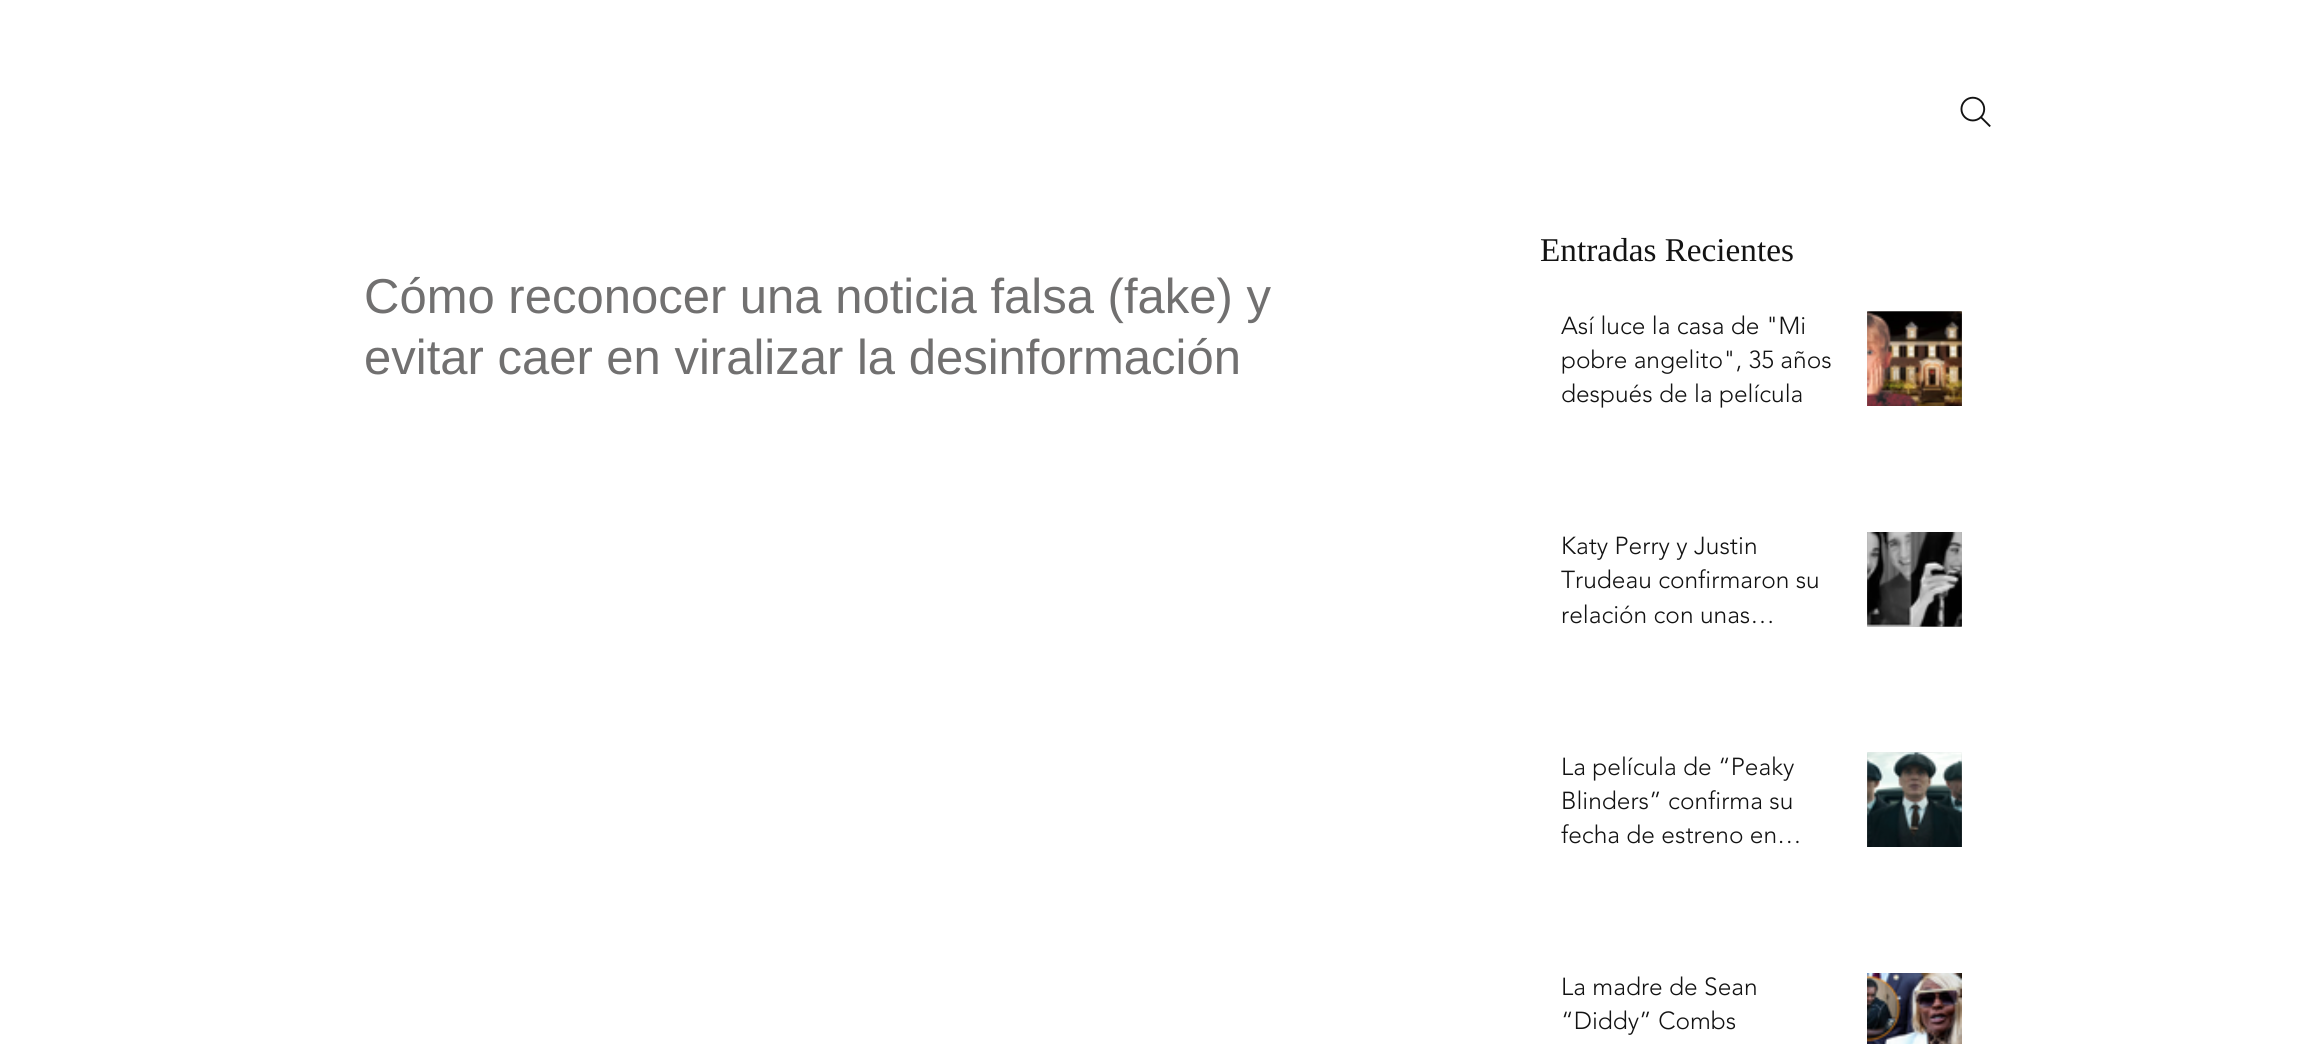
#include <cairo.h>
#include <math.h>
#include <stddef.h>


static void picture(cairo_t *cr, const char *path, double x, double y, double w, double h) {
    cairo_surface_t *image = cairo_image_surface_create_from_png(path);
    cairo_save(cr);
    cairo_set_source_surface(cr, image, x, y);
    cairo_rectangle(cr, x, y, w, h);
    cairo_fill(cr);
    cairo_restore(cr);
    cairo_surface_destroy(image);
}

int main(void) {
    cairo_surface_t *surface = cairo_image_surface_create(CAIRO_FORMAT_RGB24, 2310, 1044);
    cairo_t *cr = cairo_create(surface);
    cairo_font_options_t *options = cairo_font_options_create();
    cairo_font_options_set_hint_metrics(options, CAIRO_HINT_METRICS_OFF);
    cairo_font_options_set_hint_style(options, CAIRO_HINT_STYLE_NONE);
    cairo_set_font_options(cr, options);
    cairo_set_miter_limit(cr, 4);
    cairo_set_source_rgb(cr, 1, 1, 1);
    cairo_paint(cr);
    picture(cr, "img1.png", 1960, 96, 31, 31);
    cairo_select_font_face(cr, "Liberation Serif", CAIRO_FONT_SLANT_NORMAL, CAIRO_FONT_WEIGHT_NORMAL);
    cairo_set_font_size(cr, 33.25);
    cairo_set_source_rgb(cr, 0.075, 0.075, 0.075);
    cairo_move_to(cr, 1540, 261);
    cairo_show_text(cr, "Entradas Recientes");
    cairo_select_font_face(cr, "Liberation Sans", CAIRO_FONT_SLANT_NORMAL, CAIRO_FONT_WEIGHT_NORMAL);
    cairo_set_font_size(cr, 49);
    cairo_set_source_rgb(cr, 0.443, 0.439, 0.439);
    cairo_move_to(cr, 364, 313);
    cairo_show_text(cr, "Cómo reconocer una noticia falsa (fake) y");
    cairo_move_to(cr, 364, 374);
    cairo_show_text(cr, "evitar caer en viralizar la desinformación");
    cairo_select_font_face(cr, "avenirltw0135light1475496 Light", CAIRO_FONT_SLANT_NORMAL, CAIRO_FONT_WEIGHT_NORMAL);
    cairo_set_font_size(cr, 24.5);
    cairo_set_source_rgb(cr, 0.075, 0.075, 0.075);
    cairo_move_to(cr, 1561, 334);
    cairo_show_text(cr, "Así luce la casa de \"Mi");
    cairo_move_to(cr, 1561, 368);
    cairo_show_text(cr, "pobre angelito\", 35 años");
    cairo_move_to(cr, 1561, 402);
    cairo_show_text(cr, "después de la película");
    picture(cr, "img2.png", 1867, 311, 95, 95);
    picture(cr, "img3.png", 1867, 311, 95, 95);
    cairo_move_to(cr, 1561, 554);
    cairo_show_text(cr, "Katy Perry y Justin");
    cairo_move_to(cr, 1561, 588);
    cairo_show_text(cr, "Trudeau confirmaron su");
    cairo_move_to(cr, 1561, 623);
    cairo_show_text(cr, "relación con unas…");
    picture(cr, "img4.png", 1867, 532, 95, 95);
    picture(cr, "img5.png", 1867, 532, 95, 95);
    cairo_move_to(cr, 1561, 775);
    cairo_show_text(cr, "La película de “Peaky");
    cairo_move_to(cr, 1561, 809);
    cairo_show_text(cr, "Blinders” confirma su");
    cairo_move_to(cr, 1561, 843);
    cairo_show_text(cr, "fecha de estreno en…");
    picture(cr, "img6.png", 1867, 752, 95, 95);
    picture(cr, "img7.png", 1867, 752, 95, 95);
    cairo_move_to(cr, 1561, 995);
    cairo_show_text(cr, "La madre de Sean");
    cairo_move_to(cr, 1561, 1029);
    cairo_show_text(cr, "“Diddy” Combs");
    picture(cr, "img8.png", 1867, 973, 95, 71);
    cairo_surface_write_to_png(surface, "page.png");
    cairo_font_options_destroy(options);
    cairo_destroy(cr);
    cairo_surface_destroy(surface);
    return 0;
}
